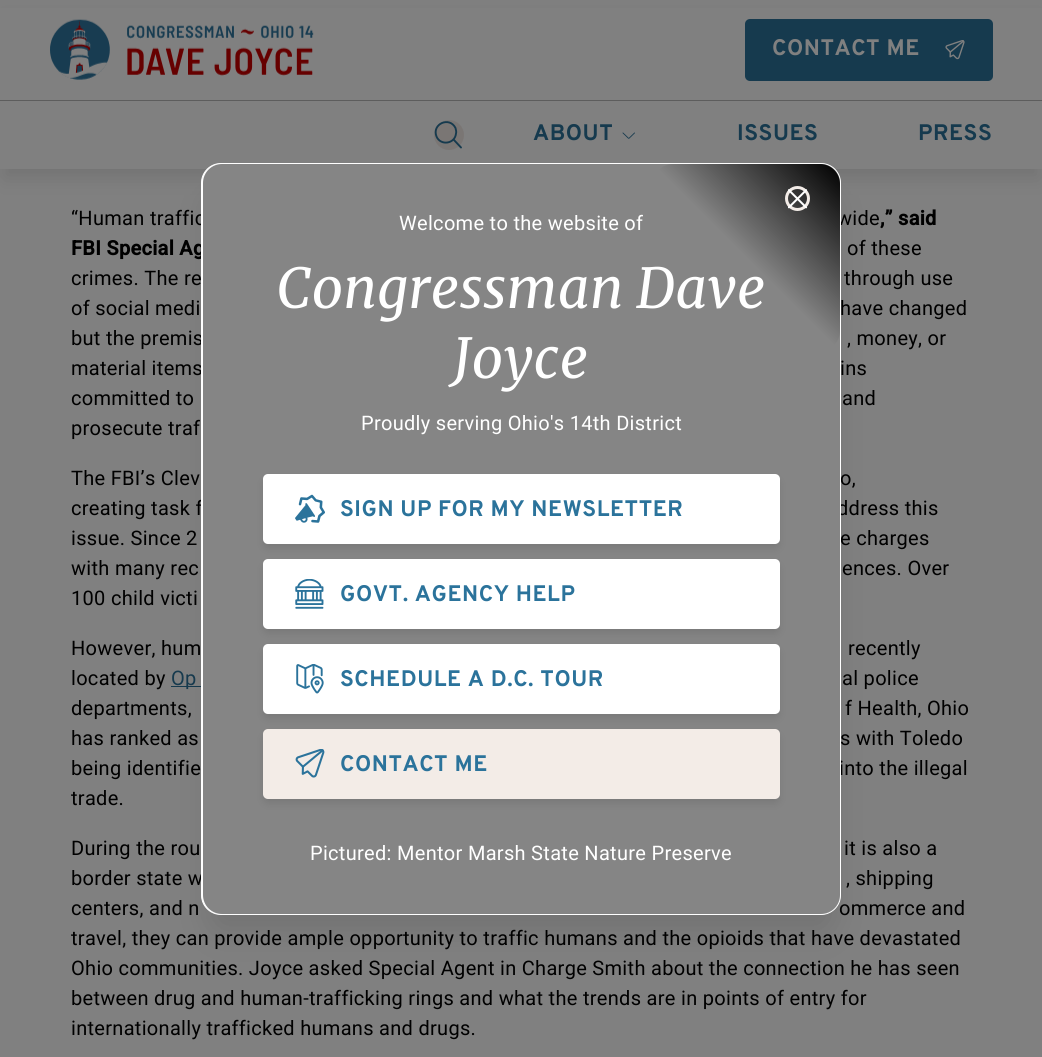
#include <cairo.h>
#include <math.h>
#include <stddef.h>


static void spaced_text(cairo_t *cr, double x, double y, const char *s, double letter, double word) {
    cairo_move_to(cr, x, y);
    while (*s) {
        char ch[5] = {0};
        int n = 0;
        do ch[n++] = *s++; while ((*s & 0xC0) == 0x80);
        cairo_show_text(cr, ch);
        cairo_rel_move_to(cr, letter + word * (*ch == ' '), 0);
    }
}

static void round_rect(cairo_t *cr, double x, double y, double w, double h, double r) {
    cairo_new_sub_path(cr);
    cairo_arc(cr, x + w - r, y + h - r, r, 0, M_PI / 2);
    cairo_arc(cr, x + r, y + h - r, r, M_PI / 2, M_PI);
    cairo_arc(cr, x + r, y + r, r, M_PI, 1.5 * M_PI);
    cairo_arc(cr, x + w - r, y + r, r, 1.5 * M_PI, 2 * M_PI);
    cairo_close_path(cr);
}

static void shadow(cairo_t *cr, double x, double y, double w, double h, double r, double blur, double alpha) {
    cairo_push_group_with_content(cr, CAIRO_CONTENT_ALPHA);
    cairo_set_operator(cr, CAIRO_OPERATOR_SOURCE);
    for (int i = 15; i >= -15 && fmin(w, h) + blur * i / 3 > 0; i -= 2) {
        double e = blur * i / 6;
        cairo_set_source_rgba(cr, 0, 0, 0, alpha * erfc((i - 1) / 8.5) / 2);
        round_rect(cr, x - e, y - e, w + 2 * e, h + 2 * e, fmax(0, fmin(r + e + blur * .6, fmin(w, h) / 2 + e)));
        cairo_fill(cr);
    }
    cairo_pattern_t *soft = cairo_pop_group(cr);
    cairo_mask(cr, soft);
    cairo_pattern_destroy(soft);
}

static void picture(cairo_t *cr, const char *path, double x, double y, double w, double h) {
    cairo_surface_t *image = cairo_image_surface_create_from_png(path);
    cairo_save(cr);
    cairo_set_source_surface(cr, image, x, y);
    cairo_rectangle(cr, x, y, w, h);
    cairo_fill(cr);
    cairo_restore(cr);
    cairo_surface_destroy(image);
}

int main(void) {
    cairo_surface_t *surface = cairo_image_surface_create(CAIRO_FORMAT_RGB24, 1042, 1057);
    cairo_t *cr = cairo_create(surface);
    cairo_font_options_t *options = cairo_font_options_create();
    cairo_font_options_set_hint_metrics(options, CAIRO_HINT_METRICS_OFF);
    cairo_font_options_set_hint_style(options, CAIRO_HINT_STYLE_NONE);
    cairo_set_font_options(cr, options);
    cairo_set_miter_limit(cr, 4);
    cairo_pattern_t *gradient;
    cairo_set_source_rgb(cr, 0.502, 0.502, 0.502);
    cairo_paint(cr);
    cairo_set_source_rgb(cr, 0, 0, 0);
    shadow(cr, 4, 16, 1035, 162, 0, 9.5, 0.1);
    cairo_set_source_rgb(cr, 0.502, 0.502, 0.502);
    cairo_rectangle(cr, 0, 8, 1042, 161);
    cairo_fill(cr);
    picture(cr, "img1.png", 50, 19, 264, 61);
    cairo_set_source_rgb(cr, 0.086, 0.227, 0.306);
    round_rect(cr, 745, 19, 248, 62, 5);
    cairo_fill(cr);
    cairo_select_font_face(cr, "Overpass", CAIRO_FONT_SLANT_NORMAL, CAIRO_FONT_WEIGHT_BOLD);
    cairo_set_font_size(cr, 22.5);
    cairo_set_source_rgb(cr, 0.502, 0.502, 0.502);
    spaced_text(cr, 772, 55, "CONTACT ME", 0.55, 0);
    picture(cr, "img2.png", 945, 40, 20, 20);
    cairo_set_source_rgb(cr, 0.365, 0.365, 0.365);
    cairo_rectangle(cr, 0, 100, 1042, 1);
    cairo_fill(cr);
    cairo_set_source_rgb(cr, 0.478, 0.463, 0.455);
    cairo_arc(cr, 449, 135, 15, 0, 2 * M_PI);
    cairo_fill(cr);
    cairo_new_path(cr);
    cairo_move_to(cr, 436.5, 136.5);
    cairo_curve_to(cr, 440.5, 146, 455, 144, 456, 133.5);
    cairo_curve_to(cr, 456.5, 132, 456, 130, 455.5, 128);
    cairo_curve_to(cr, 449.5, 116, 431.5, 124, 436.5, 136.5);
    cairo_close_path(cr);
    cairo_move_to(cr, 454, 140);
    cairo_line_to(cr, 461, 147.5);
    cairo_set_source_rgb(cr, 0.086, 0.227, 0.306);
    cairo_set_line_width(cr, 1.9);
    cairo_set_line_cap(cr, CAIRO_LINE_CAP_ROUND);
    cairo_set_line_join(cr, CAIRO_LINE_JOIN_ROUND);
    cairo_stroke(cr);
    spaced_text(cr, 533, 140, "ABOUT", 0.55, 0);
    picture(cr, "img3.png", 622, 132, 13, 7);
    spaced_text(cr, 737, 140, "ISSUES", 0.55, 0);
    spaced_text(cr, 918, 140, "PRESS", 0.55, 0);
    cairo_select_font_face(cr, "Roboto", CAIRO_FONT_SLANT_NORMAL, CAIRO_FONT_WEIGHT_NORMAL);
    cairo_set_font_size(cr, 20);
    cairo_set_source_rgb(cr, 0, 0, 0);
    spaced_text(cr, 71, 225, "“Human traffic", 0.3, 0);
    spaced_text(cr, 837, 225, "wide", 0.3, 0);
    cairo_select_font_face(cr, "Roboto", CAIRO_FONT_SLANT_NORMAL, CAIRO_FONT_WEIGHT_BOLD);
    spaced_text(cr, 880, 225, ",” said", 0.3, 0);
    spaced_text(cr, 71, 255, "FBI Special Ag", 0.3, 0);
    cairo_select_font_face(cr, "Roboto", CAIRO_FONT_SLANT_NORMAL, CAIRO_FONT_WEIGHT_NORMAL);
    spaced_text(cr, 847, 255, "of these", 0.3, 0);
    spaced_text(cr, 71, 285, "crimes. The re", 0.3, 0);
    spaced_text(cr, 844, 285, "through use", 0.3, 0);
    spaced_text(cr, 71, 315, "of social medi", 0.3, 0);
    spaced_text(cr, 840, 315, "have changed", 0.3, 0);
    spaced_text(cr, 71, 345, "but the premis", 0.3, 0);
    spaced_text(cr, 847, 345, ", money, or", 0.3, 0);
    spaced_text(cr, 71, 375, "material items", 0.3, 0);
    spaced_text(cr, 840, 375, "ins", 0.3, 0);
    spaced_text(cr, 71, 405, "committed to", 0.3, 0);
    spaced_text(cr, 842, 405, "and", 0.3, 0);
    spaced_text(cr, 71, 435, "prosecute traf", 0.3, 0);
    spaced_text(cr, 71, 485, "The FBI’s Clev", 0.3, 0);
    spaced_text(cr, 840, 485, "o,", 0.3, 0);
    spaced_text(cr, 71, 515, "creating task f", 0.3, 0);
    spaced_text(cr, 837, 515, "ddress this", 0.3, 0);
    spaced_text(cr, 71, 545, "issue. Since 2", 0.3, 0);
    spaced_text(cr, 840, 545, "e charges", 0.3, 0);
    spaced_text(cr, 71, 575, "with many rec", 0.3, 0);
    spaced_text(cr, 842, 575, "ences. Over", 0.3, 0);
    spaced_text(cr, 71, 605, "100 child victi", 0.3, 0);
    spaced_text(cr, 71, 655, "However, hum", 0.3, 0);
    spaced_text(cr, 848, 655, "recently", 0.3, 0);
    spaced_text(cr, 71, 685, "located by", 0.3, 0);
    cairo_set_source_rgb(cr, 0.086, 0.227, 0.306);
    cairo_rectangle(cr, 171, 686, 30, 1);
    cairo_fill(cr);
    spaced_text(cr, 171, 685, "Op", 0.3, 0);
    cairo_set_source_rgb(cr, 0, 0, 0);
    spaced_text(cr, 842, 685, "al police", 0.3, 0);
    spaced_text(cr, 71, 715, "departments,", 0.3, 0);
    spaced_text(cr, 845, 715, "f Health, Ohio", 0.3, 0);
    spaced_text(cr, 71, 745, "has ranked as", 0.3, 0);
    spaced_text(cr, 840, 745, "s with Toledo", 0.3, 0);
    spaced_text(cr, 71, 775, "being identifie", 0.3, 0);
    spaced_text(cr, 839, 775, "into the illegal", 0.3, 0);
    spaced_text(cr, 71, 805, "trade.", 0.3, 0);
    spaced_text(cr, 71, 855, "During the rou", 0.3, 0);
    spaced_text(cr, 844, 855, "it is also a", 0.3, 0);
    spaced_text(cr, 71, 885, "border state w", 0.3, 0);
    spaced_text(cr, 846, 885, ", shipping", 0.3, 0);
    spaced_text(cr, 71, 915, "centers, and n", 0.3, 0);
    spaced_text(cr, 839, 915, "ommerce and", 0.3, 0);
    spaced_text(cr, 71, 945, "travel, they can provide ample opportunity to traffic humans and the opioids that have devastated", 0.3, 0);
    spaced_text(cr, 71, 975, "Ohio communities. Joyce asked Special Agent in Charge Smith about the connection he has seen", 0.3, 0);
    spaced_text(cr, 71, 1005, "between drug and human-trafficking rings and what the trends are in points of entry for", 0.3, 0);
    spaced_text(cr, 71, 1035, "internationally trafficked humans and drugs.", 0.3, 0);
    cairo_set_source_rgb(cr, 0, 0, 0);
    shadow(cr, 208, 194, 627, 740, 14, 15.5, 0.1);
    cairo_set_source_rgb(cr, 1, 1, 1);
    round_rect(cr, 201.5, 163.5, 639, 751, 19.5);
    cairo_fill_preserve(cr);
    cairo_set_line_width(cr, 1);
    cairo_set_line_cap(cr, CAIRO_LINE_CAP_BUTT);
    cairo_set_line_join(cr, CAIRO_LINE_JOIN_MITER);
    cairo_stroke(cr);
    cairo_set_source_rgb(cr, 0.522, 0.522, 0.522);
    round_rect(cr, 203, 164, 637, 750, 19);
    cairo_fill(cr);
    cairo_select_font_face(cr, "Merriweather Light", CAIRO_FONT_SLANT_ITALIC, CAIRO_FONT_WEIGHT_NORMAL);
    cairo_set_font_size(cr, 55);
    cairo_set_source_rgb(cr, 1, 1, 1);
    spaced_text(cr, 276, 308, "Congressman Dave", 0.5, 0);
    cairo_save(cr);
    round_rect(cr, 203, 164, 637, 750, 19);
    cairo_clip(cr);
    gradient = cairo_pattern_create_linear(840, 164, 653, 351);
    cairo_pattern_add_color_stop_rgba(gradient, 0, 0, 0, 0, 1);
    cairo_pattern_add_color_stop_rgba(gradient, 0.5, 0, 0, 0, 0);
    cairo_set_source(cr, gradient);
    cairo_pattern_destroy(gradient);
    round_rect(cr, 653, 164, 187, 187, 20);
    cairo_fill(cr);
    cairo_restore(cr);
    cairo_arc(cr, 797.5, 198.5, 11, 0, 2 * M_PI);
    cairo_set_source_rgb(cr, 0.953, 0.925, 0.906);
    cairo_set_line_width(cr, 3);
    cairo_stroke(cr);
    picture(cr, "img4.png", 788, 189, 20, 20);
    cairo_select_font_face(cr, "Roboto", CAIRO_FONT_SLANT_NORMAL, CAIRO_FONT_WEIGHT_NORMAL);
    cairo_set_font_size(cr, 20);
    cairo_set_source_rgb(cr, 1, 1, 1);
    spaced_text(cr, 399, 230, "Welcome to the website of", 0.3, 0);
    cairo_select_font_face(cr, "Merriweather Light", CAIRO_FONT_SLANT_ITALIC, CAIRO_FONT_WEIGHT_NORMAL);
    cairo_set_font_size(cr, 55);
    spaced_text(cr, 453, 378, "Joyce", 0.5, 0);
    cairo_select_font_face(cr, "Roboto", CAIRO_FONT_SLANT_NORMAL, CAIRO_FONT_WEIGHT_NORMAL);
    cairo_set_font_size(cr, 20);
    spaced_text(cr, 361, 430, "Proudly serving Ohio's 14th District", 0.3, 0);
    cairo_set_source_rgb(cr, 0, 0, 0);
    shadow(cr, 264, 480, 515, 68, 4, 4, 0.1);
    cairo_set_source_rgb(cr, 1, 1, 1);
    round_rect(cr, 263, 474, 517, 70, 5);
    cairo_fill(cr);
    picture(cr, "img5.png", 295, 494, 30, 29);
    cairo_select_font_face(cr, "Overpass", CAIRO_FONT_SLANT_NORMAL, CAIRO_FONT_WEIGHT_BOLD);
    cairo_set_font_size(cr, 22.5);
    cairo_set_source_rgb(cr, 0.169, 0.451, 0.608);
    spaced_text(cr, 340, 516, "SIGN UP FOR MY NEWSLETTER", 0.55, 0);
    cairo_set_source_rgb(cr, 0, 0, 0);
    shadow(cr, 264, 565, 515, 68, 4, 4, 0.1);
    cairo_set_source_rgb(cr, 1, 1, 1);
    round_rect(cr, 263, 559, 517, 70, 5);
    cairo_fill(cr);
    picture(cr, "img6.png", 295, 579, 29, 30);
    cairo_set_source_rgb(cr, 0.169, 0.451, 0.608);
    spaced_text(cr, 340, 601, "GOVT. AGENCY HELP", 0.55, 0);
    cairo_set_source_rgb(cr, 0, 0, 0);
    shadow(cr, 264, 650, 515, 68, 4, 4, 0.1);
    cairo_set_source_rgb(cr, 1, 1, 1);
    round_rect(cr, 263, 644, 517, 70, 5);
    cairo_fill(cr);
    picture(cr, "img7.png", 296, 664, 28, 30);
    cairo_set_source_rgb(cr, 0.169, 0.451, 0.608);
    spaced_text(cr, 340, 686, "SCHEDULE A D.C. TOUR", 0.55, 0);
    cairo_set_source_rgb(cr, 0, 0, 0);
    shadow(cr, 264, 735, 515, 68, 4, 4, 0.1);
    cairo_set_source_rgb(cr, 0.953, 0.925, 0.906);
    round_rect(cr, 263, 729, 517, 70, 5);
    cairo_fill(cr);
    picture(cr, "img8.png", 295, 749, 30, 29);
    cairo_set_source_rgb(cr, 0.169, 0.451, 0.608);
    spaced_text(cr, 340, 771, "CONTACT ME", 0.55, 0);
    cairo_select_font_face(cr, "Roboto", CAIRO_FONT_SLANT_NORMAL, CAIRO_FONT_WEIGHT_NORMAL);
    cairo_set_font_size(cr, 20);
    cairo_set_source_rgb(cr, 1, 1, 1);
    spaced_text(cr, 310, 860, "Pictured: Mentor Marsh State Nature Preserve", 0.3, 0);
    cairo_surface_write_to_png(surface, "page.png");
    cairo_font_options_destroy(options);
    cairo_destroy(cr);
    cairo_surface_destroy(surface);
    return 0;
}
